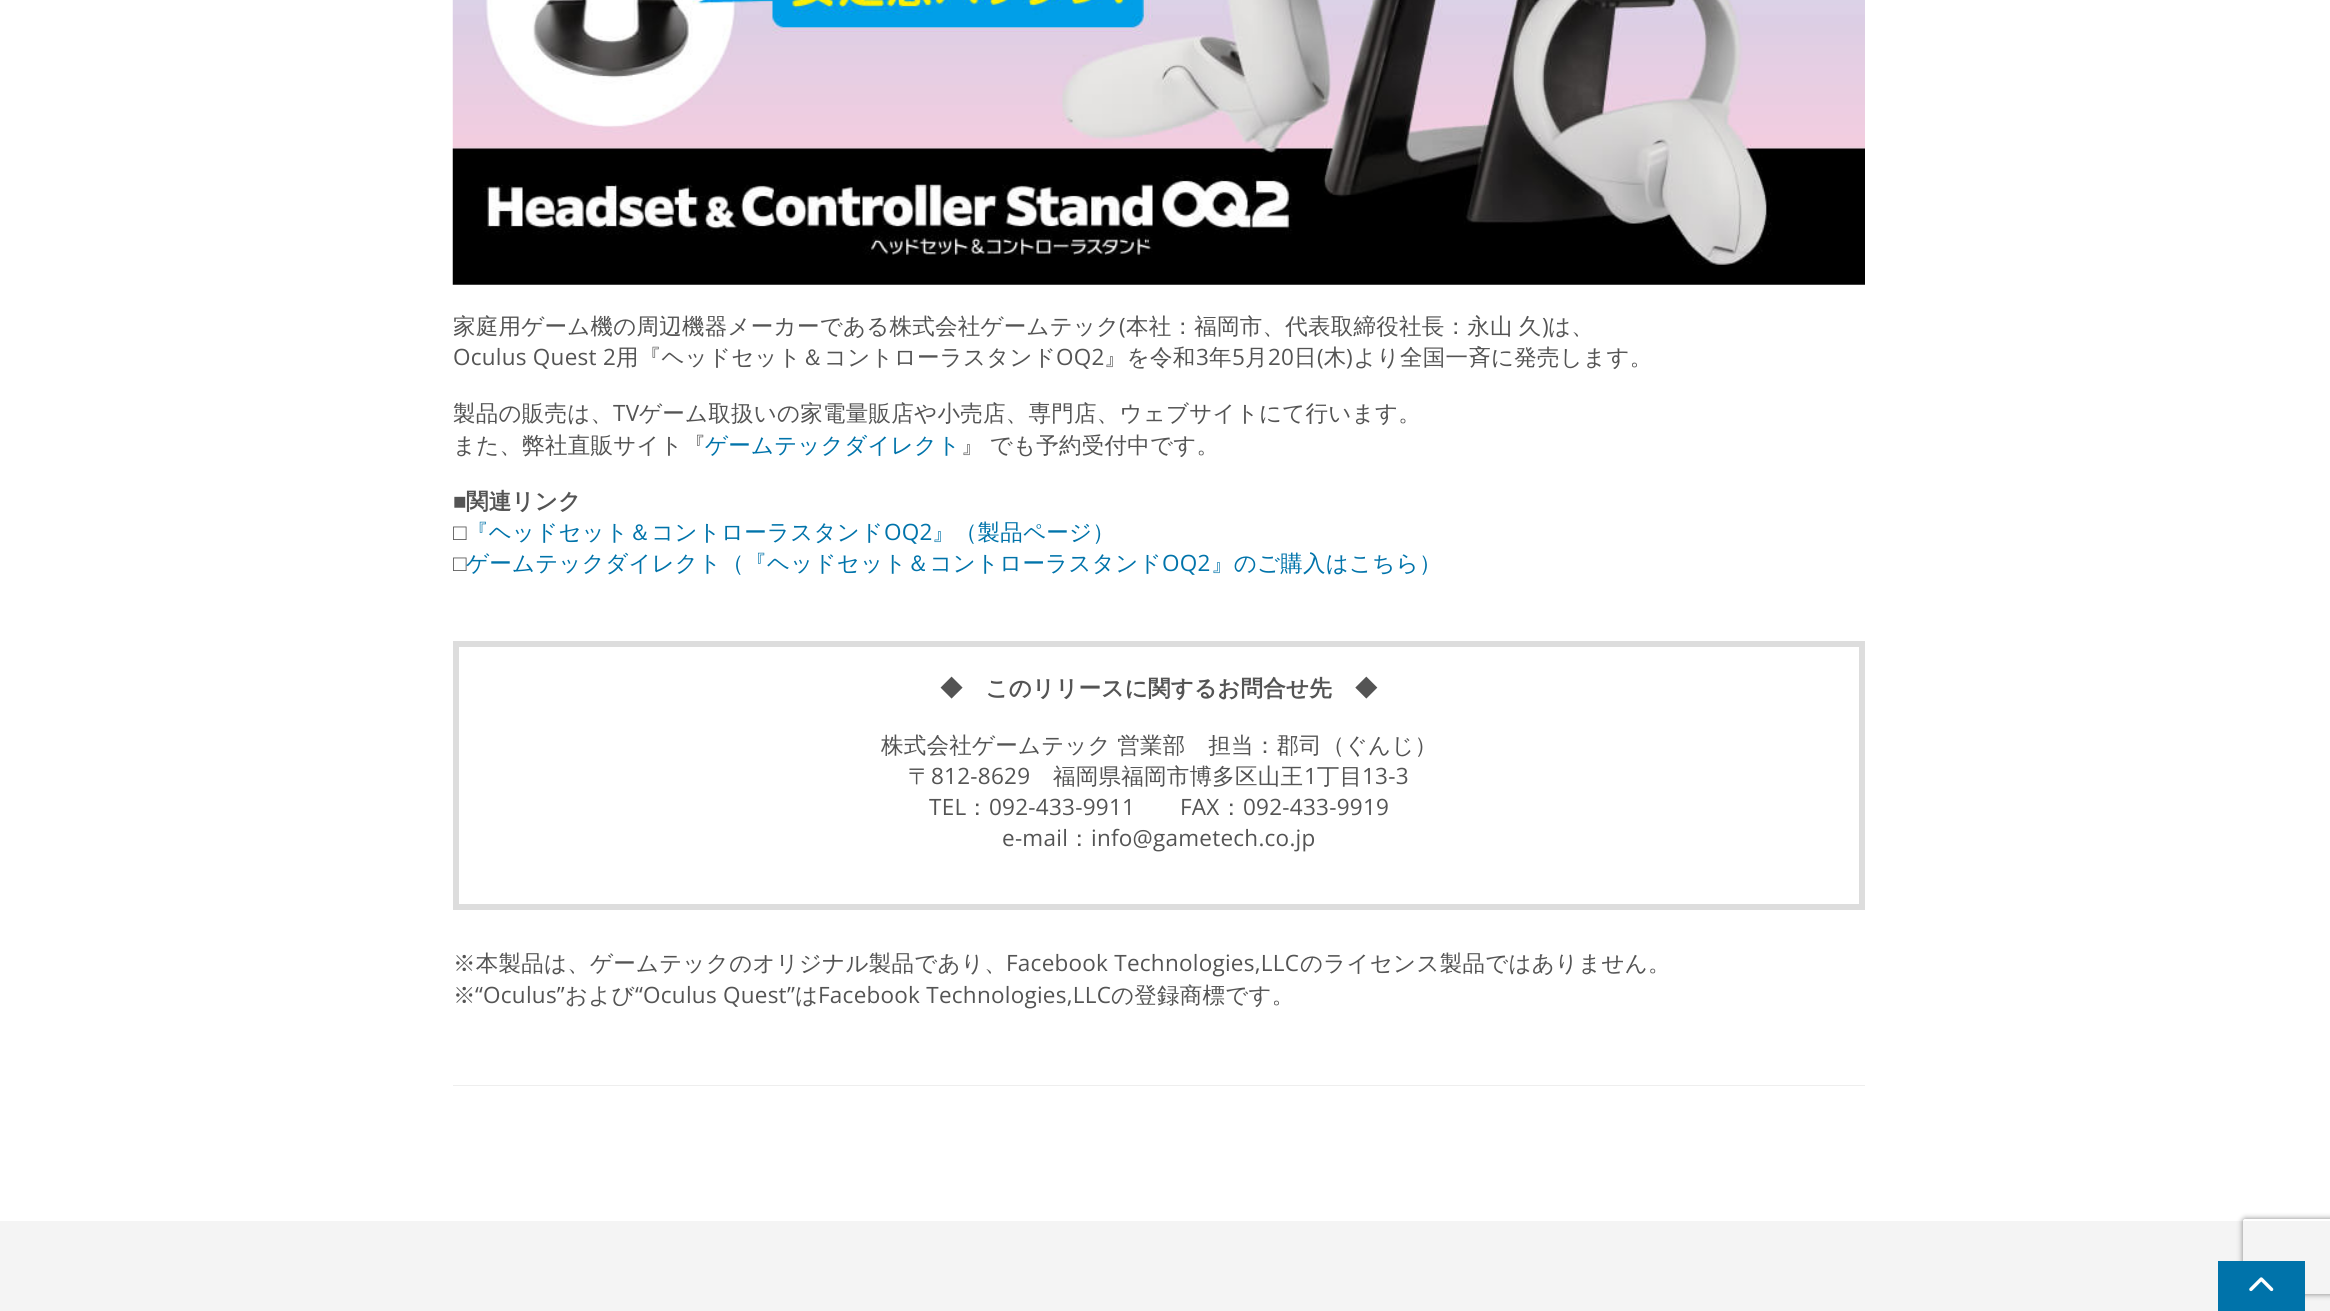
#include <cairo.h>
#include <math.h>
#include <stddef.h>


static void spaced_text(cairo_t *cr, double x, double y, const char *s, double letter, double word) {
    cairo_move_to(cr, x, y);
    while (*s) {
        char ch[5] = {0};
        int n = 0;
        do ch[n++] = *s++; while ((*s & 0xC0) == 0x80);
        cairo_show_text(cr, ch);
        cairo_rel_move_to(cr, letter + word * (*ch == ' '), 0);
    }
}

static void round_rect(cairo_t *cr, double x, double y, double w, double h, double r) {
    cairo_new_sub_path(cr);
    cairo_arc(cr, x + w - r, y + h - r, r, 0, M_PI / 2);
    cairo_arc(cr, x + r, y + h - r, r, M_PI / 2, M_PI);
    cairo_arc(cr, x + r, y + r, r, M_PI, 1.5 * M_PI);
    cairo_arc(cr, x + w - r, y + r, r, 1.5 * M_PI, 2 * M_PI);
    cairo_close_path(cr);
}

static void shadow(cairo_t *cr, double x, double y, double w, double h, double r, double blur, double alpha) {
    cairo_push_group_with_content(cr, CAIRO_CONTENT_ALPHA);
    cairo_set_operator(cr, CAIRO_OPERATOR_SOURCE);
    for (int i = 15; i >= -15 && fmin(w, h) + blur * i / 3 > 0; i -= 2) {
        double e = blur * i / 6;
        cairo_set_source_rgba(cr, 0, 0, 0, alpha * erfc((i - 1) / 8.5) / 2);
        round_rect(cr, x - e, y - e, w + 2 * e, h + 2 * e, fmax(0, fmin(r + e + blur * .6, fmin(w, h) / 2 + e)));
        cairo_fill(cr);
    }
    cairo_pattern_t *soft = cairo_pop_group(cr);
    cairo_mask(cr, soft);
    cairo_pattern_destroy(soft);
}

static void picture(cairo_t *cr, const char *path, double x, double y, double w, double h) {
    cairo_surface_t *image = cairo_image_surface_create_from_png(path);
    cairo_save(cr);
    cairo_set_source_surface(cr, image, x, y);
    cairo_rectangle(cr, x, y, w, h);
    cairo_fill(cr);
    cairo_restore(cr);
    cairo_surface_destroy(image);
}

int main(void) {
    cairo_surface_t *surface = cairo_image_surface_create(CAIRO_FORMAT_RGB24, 2330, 1311);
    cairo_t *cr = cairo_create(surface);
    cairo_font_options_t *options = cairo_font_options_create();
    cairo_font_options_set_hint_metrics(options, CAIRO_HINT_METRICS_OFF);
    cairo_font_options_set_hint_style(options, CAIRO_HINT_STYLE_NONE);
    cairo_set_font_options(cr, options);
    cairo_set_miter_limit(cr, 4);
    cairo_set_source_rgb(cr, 1, 1, 1);
    cairo_paint(cr);
    cairo_set_source_rgb(cr, 0.933, 0.933, 0.933);
    cairo_rectangle(cr, 453, 1085, 1412, 1);
    cairo_fill(cr);
    picture(cr, "img1.png", 452, 0, 1413, 285);
    cairo_select_font_face(cr, "WenQuanYi Zen Hei Medium", CAIRO_FONT_SLANT_NORMAL, CAIRO_FONT_WEIGHT_NORMAL);
    cairo_set_font_size(cr, 22.5);
    cairo_set_source_rgb(cr, 0.329, 0.329, 0.329);
    spaced_text(cr, 453, 334, "家庭用ゲーム機の周辺機器メーカーである株式会社ゲームテック", 0.25, 0);
    cairo_select_font_face(cr, "Open Sans", CAIRO_FONT_SLANT_NORMAL, CAIRO_FONT_WEIGHT_NORMAL);
    spaced_text(cr, 1119, 334, "(", 0.25, 0);
    cairo_select_font_face(cr, "WenQuanYi Zen Hei Medium", CAIRO_FONT_SLANT_NORMAL, CAIRO_FONT_WEIGHT_NORMAL);
    spaced_text(cr, 1126, 334, "本社：福岡市、代表取締役社長：永山 久", 0.25, -1);
    cairo_select_font_face(cr, "Open Sans", CAIRO_FONT_SLANT_NORMAL, CAIRO_FONT_WEIGHT_NORMAL);
    spaced_text(cr, 1542, 334, ")", 0.25, 0);
    cairo_select_font_face(cr, "WenQuanYi Zen Hei Medium", CAIRO_FONT_SLANT_NORMAL, CAIRO_FONT_WEIGHT_NORMAL);
    spaced_text(cr, 1548, 334, "は、", 0.25, 0);
    cairo_select_font_face(cr, "Open Sans", CAIRO_FONT_SLANT_NORMAL, CAIRO_FONT_WEIGHT_NORMAL);
    spaced_text(cr, 453, 365, "Oculus Quest 2", 0.25, 0);
    cairo_select_font_face(cr, "WenQuanYi Zen Hei Medium", CAIRO_FONT_SLANT_NORMAL, CAIRO_FONT_WEIGHT_NORMAL);
    spaced_text(cr, 616, 365, "用『ヘッドセット＆コントローラスタンド", 0.25, 0);
    cairo_select_font_face(cr, "Open Sans", CAIRO_FONT_SLANT_NORMAL, CAIRO_FONT_WEIGHT_NORMAL);
    spaced_text(cr, 1056, 365, "OQ2", 0.25, 0);
    cairo_select_font_face(cr, "WenQuanYi Zen Hei Medium", CAIRO_FONT_SLANT_NORMAL, CAIRO_FONT_WEIGHT_NORMAL);
    spaced_text(cr, 1104, 365, "』を令和", 0.25, 0);
    cairo_select_font_face(cr, "Open Sans", CAIRO_FONT_SLANT_NORMAL, CAIRO_FONT_WEIGHT_NORMAL);
    spaced_text(cr, 1196, 365, "3", 0.25, 0);
    cairo_select_font_face(cr, "WenQuanYi Zen Hei Medium", CAIRO_FONT_SLANT_NORMAL, CAIRO_FONT_WEIGHT_NORMAL);
    spaced_text(cr, 1209, 365, "年", 0.25, 0);
    cairo_select_font_face(cr, "Open Sans", CAIRO_FONT_SLANT_NORMAL, CAIRO_FONT_WEIGHT_NORMAL);
    spaced_text(cr, 1232, 365, "5", 0.25, 0);
    cairo_select_font_face(cr, "WenQuanYi Zen Hei Medium", CAIRO_FONT_SLANT_NORMAL, CAIRO_FONT_WEIGHT_NORMAL);
    spaced_text(cr, 1245, 365, "月", 0.25, 0);
    cairo_select_font_face(cr, "Open Sans", CAIRO_FONT_SLANT_NORMAL, CAIRO_FONT_WEIGHT_NORMAL);
    spaced_text(cr, 1268, 365, "20", 0.25, 0);
    cairo_select_font_face(cr, "WenQuanYi Zen Hei Medium", CAIRO_FONT_SLANT_NORMAL, CAIRO_FONT_WEIGHT_NORMAL);
    spaced_text(cr, 1294, 365, "日 木 より全国一斉に発売します。", 0.25, 0);
    cairo_select_font_face(cr, "Open Sans", CAIRO_FONT_SLANT_NORMAL, CAIRO_FONT_WEIGHT_NORMAL);
    spaced_text(cr, 1317, 365, "(", 0.25, 0);
    spaced_text(cr, 1346, 365, ")", 0.25, 0);
    cairo_select_font_face(cr, "WenQuanYi Zen Hei Medium", CAIRO_FONT_SLANT_NORMAL, CAIRO_FONT_WEIGHT_NORMAL);
    spaced_text(cr, 453, 421, "製品の販売は、", 0.25, 0);
    cairo_select_font_face(cr, "Open Sans", CAIRO_FONT_SLANT_NORMAL, CAIRO_FONT_WEIGHT_NORMAL);
    spaced_text(cr, 613, 421, "TV", 0.25, 0);
    cairo_select_font_face(cr, "WenQuanYi Zen Hei Medium", CAIRO_FONT_SLANT_NORMAL, CAIRO_FONT_WEIGHT_NORMAL);
    spaced_text(cr, 639, 421, "ゲーム取扱いの家電量販店や小売店、専門店、ウェブサイトにて行います。", 0.25, 0);
    spaced_text(cr, 453, 453, "また、弊社直販サイト『", 0.25, 0);
    cairo_set_source_rgb(cr, 0, 0.451, 0.667);
    spaced_text(cr, 705, 453, "ゲームテックダイレクト", 0.25, 0);
    cairo_set_source_rgb(cr, 0.329, 0.329, 0.329);
    spaced_text(cr, 961, 453, "』 でも予約受付中です。", 0.25, -1);
    cairo_select_font_face(cr, "Liberation Serif", CAIRO_FONT_SLANT_NORMAL, CAIRO_FONT_WEIGHT_BOLD);
    spaced_text(cr, 453, 509, "■", 0.25, 0);
    cairo_select_font_face(cr, "WenQuanYi Zen Hei", CAIRO_FONT_SLANT_NORMAL, CAIRO_FONT_WEIGHT_BOLD);
    spaced_text(cr, 466, 509, "関連リンク", 0.25, 0);
    cairo_save(cr);
    cairo_rectangle(cr, 453, 0, 1412, 1035);
    cairo_clip(cr);
    cairo_select_font_face(cr, "Liberation Serif", CAIRO_FONT_SLANT_NORMAL, CAIRO_FONT_WEIGHT_NORMAL);
    spaced_text(cr, 453, 540, "□", 0.25, 0);
    cairo_restore(cr);
    cairo_select_font_face(cr, "WenQuanYi Zen Hei Medium", CAIRO_FONT_SLANT_NORMAL, CAIRO_FONT_WEIGHT_NORMAL);
    cairo_set_source_rgb(cr, 0, 0.451, 0.667);
    spaced_text(cr, 466, 540, "『ヘッドセット＆コントローラスタンド", 0.25, 0);
    cairo_select_font_face(cr, "Open Sans", CAIRO_FONT_SLANT_NORMAL, CAIRO_FONT_WEIGHT_NORMAL);
    spaced_text(cr, 884, 540, "OQ2", 0.25, 0);
    cairo_select_font_face(cr, "WenQuanYi Zen Hei Medium", CAIRO_FONT_SLANT_NORMAL, CAIRO_FONT_WEIGHT_NORMAL);
    spaced_text(cr, 932, 540, "』（製品ページ）", 0.25, 0);
    cairo_save(cr);
    cairo_rectangle(cr, 453, 0, 1412, 1035);
    cairo_clip(cr);
    cairo_select_font_face(cr, "Liberation Serif", CAIRO_FONT_SLANT_NORMAL, CAIRO_FONT_WEIGHT_NORMAL);
    cairo_set_source_rgb(cr, 0.329, 0.329, 0.329);
    spaced_text(cr, 453, 571, "□", 0.25, 0);
    cairo_restore(cr);
    spaced_text(cr, 466, 571, "ゲームテックダイレクト（『ヘッドセット＆コントローラスタンド", 0.25, 0);
    cairo_select_font_face(cr, "Open Sans", CAIRO_FONT_SLANT_NORMAL, CAIRO_FONT_WEIGHT_NORMAL);
    spaced_text(cr, 1162, 571, "OQ2", 0.25, 0);
    cairo_select_font_face(cr, "WenQuanYi Zen Hei Medium", CAIRO_FONT_SLANT_NORMAL, CAIRO_FONT_WEIGHT_NORMAL);
    spaced_text(cr, 1211, 571, "』のご購入はこちら）", 0.25, 0);
    cairo_rectangle(cr, 456, 644, 1406, 263);
    cairo_set_source_rgb(cr, 0.867, 0.867, 0.867);
    cairo_set_line_width(cr, 6);
    cairo_stroke(cr);
    cairo_select_font_face(cr, "WenQuanYi Zen Hei", CAIRO_FONT_SLANT_NORMAL, CAIRO_FONT_WEIGHT_BOLD);
    cairo_set_source_rgb(cr, 0.329, 0.329, 0.329);
    spaced_text(cr, 940, 696, "◆　このリリースに関するお問合せ先　◆", 0.25, 0);
    cairo_select_font_face(cr, "WenQuanYi Zen Hei Medium", CAIRO_FONT_SLANT_NORMAL, CAIRO_FONT_WEIGHT_NORMAL);
    spaced_text(cr, 881, 753, "株式会社ゲームテック 営業部　担当：郡司（ぐんじ）", 0.25, -1);
    spaced_text(cr, 908, 784, "〒", 0.25, 0);
    cairo_select_font_face(cr, "Open Sans", CAIRO_FONT_SLANT_NORMAL, CAIRO_FONT_WEIGHT_NORMAL);
    spaced_text(cr, 931, 784, "812-8629", 0.25, 0);
    cairo_select_font_face(cr, "WenQuanYi Zen Hei Medium", CAIRO_FONT_SLANT_NORMAL, CAIRO_FONT_WEIGHT_NORMAL);
    spaced_text(cr, 1053, 784, "福岡県福岡市博多区山王", 0.25, 0);
    cairo_select_font_face(cr, "Open Sans", CAIRO_FONT_SLANT_NORMAL, CAIRO_FONT_WEIGHT_NORMAL);
    spaced_text(cr, 1304, 784, "1", 0.25, 0);
    cairo_select_font_face(cr, "WenQuanYi Zen Hei Medium", CAIRO_FONT_SLANT_NORMAL, CAIRO_FONT_WEIGHT_NORMAL);
    spaced_text(cr, 1317, 784, "丁目", 0.25, 0);
    cairo_select_font_face(cr, "Open Sans", CAIRO_FONT_SLANT_NORMAL, CAIRO_FONT_WEIGHT_NORMAL);
    spaced_text(cr, 1362, 784, "13-3", 0.25, 0);
    spaced_text(cr, 929, 815, "TEL", 0.25, 0);
    cairo_select_font_face(cr, "WenQuanYi Zen Hei Medium", CAIRO_FONT_SLANT_NORMAL, CAIRO_FONT_WEIGHT_NORMAL);
    spaced_text(cr, 966, 815, "：", 0.25, 0);
    cairo_select_font_face(cr, "Open Sans", CAIRO_FONT_SLANT_NORMAL, CAIRO_FONT_WEIGHT_NORMAL);
    spaced_text(cr, 989, 815, "092-433-9911", 0.25, 0);
    spaced_text(cr, 1180, 815, "FAX", 0.25, 0);
    cairo_select_font_face(cr, "WenQuanYi Zen Hei Medium", CAIRO_FONT_SLANT_NORMAL, CAIRO_FONT_WEIGHT_NORMAL);
    spaced_text(cr, 1220, 815, "：", 0.25, 0);
    cairo_select_font_face(cr, "Open Sans", CAIRO_FONT_SLANT_NORMAL, CAIRO_FONT_WEIGHT_NORMAL);
    spaced_text(cr, 1243, 815, "092-433-9919", 0.25, 0);
    spaced_text(cr, 1002, 846, "e-mail", 0.25, 0);
    cairo_select_font_face(cr, "WenQuanYi Zen Hei Medium", CAIRO_FONT_SLANT_NORMAL, CAIRO_FONT_WEIGHT_NORMAL);
    spaced_text(cr, 1068, 846, "：", 0.25, 0);
    cairo_select_font_face(cr, "Open Sans", CAIRO_FONT_SLANT_NORMAL, CAIRO_FONT_WEIGHT_NORMAL);
    spaced_text(cr, 1091, 846, "info@gametech.co.jp", 0.25, 0);
    cairo_select_font_face(cr, "WenQuanYi Zen Hei Medium", CAIRO_FONT_SLANT_NORMAL, CAIRO_FONT_WEIGHT_NORMAL);
    spaced_text(cr, 453, 971, "※本製品は、ゲームテックのオリジナル製品であり、", 0.25, 0);
    cairo_select_font_face(cr, "Open Sans", CAIRO_FONT_SLANT_NORMAL, CAIRO_FONT_WEIGHT_NORMAL);
    spaced_text(cr, 1006, 971, "Facebook Technologies,LLC", 0.25, 0);
    cairo_select_font_face(cr, "WenQuanYi Zen Hei Medium", CAIRO_FONT_SLANT_NORMAL, CAIRO_FONT_WEIGHT_NORMAL);
    spaced_text(cr, 1300, 971, "のライセンス製品ではありません。", 0.25, 0);
    spaced_text(cr, 453, 1003, "※", 0.25, 0);
    cairo_select_font_face(cr, "Open Sans", CAIRO_FONT_SLANT_NORMAL, CAIRO_FONT_WEIGHT_NORMAL);
    spaced_text(cr, 475, 1003, "“Oculus”", 0.25, 0);
    cairo_select_font_face(cr, "WenQuanYi Zen Hei Medium", CAIRO_FONT_SLANT_NORMAL, CAIRO_FONT_WEIGHT_NORMAL);
    spaced_text(cr, 565, 1003, "および", 0.25, 0);
    cairo_select_font_face(cr, "Open Sans", CAIRO_FONT_SLANT_NORMAL, CAIRO_FONT_WEIGHT_NORMAL);
    spaced_text(cr, 635, 1003, "“Oculus Quest”", 0.25, 0);
    cairo_select_font_face(cr, "WenQuanYi Zen Hei Medium", CAIRO_FONT_SLANT_NORMAL, CAIRO_FONT_WEIGHT_NORMAL);
    spaced_text(cr, 795, 1003, "は", 0.25, 0);
    cairo_select_font_face(cr, "Open Sans", CAIRO_FONT_SLANT_NORMAL, CAIRO_FONT_WEIGHT_NORMAL);
    spaced_text(cr, 818, 1003, "Facebook Technologies,LLC", 0.25, 0);
    cairo_select_font_face(cr, "WenQuanYi Zen Hei Medium", CAIRO_FONT_SLANT_NORMAL, CAIRO_FONT_WEIGHT_NORMAL);
    spaced_text(cr, 1111, 1003, "の登録商標です。", 0.25, 0);
    cairo_set_source_rgb(cr, 0.957, 0.957, 0.957);
    cairo_rectangle(cr, 0, 1221, 2330, 90);
    cairo_fill(cr);
    cairo_save(cr);
    cairo_set_fill_rule(cr, CAIRO_FILL_RULE_EVEN_ODD);
    cairo_new_path(cr);
    cairo_move_to(cr, 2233, 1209);
    cairo_line_to(cr, 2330, 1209);
    cairo_line_to(cr, 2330, 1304);
    cairo_line_to(cr, 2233, 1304);
    cairo_close_path(cr);
    cairo_move_to(cr, 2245.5, 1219);
    cairo_line_to(cr, 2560.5, 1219);
    cairo_curve_to(cr, 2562, 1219, 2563, 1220, 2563, 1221.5);
    cairo_line_to(cr, 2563, 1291.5);
    cairo_curve_to(cr, 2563, 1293, 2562, 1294, 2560.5, 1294);
    cairo_line_to(cr, 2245.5, 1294);
    cairo_curve_to(cr, 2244, 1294, 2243, 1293, 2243, 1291.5);
    cairo_line_to(cr, 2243, 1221.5);
    cairo_curve_to(cr, 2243, 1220, 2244, 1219, 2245.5, 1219);
    cairo_close_path(cr);
    cairo_clip(cr);
    cairo_set_source_rgb(cr, 0.502, 0.502, 0.502);
    shadow(cr, 2243, 1219, 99, 75, 2.5, 3, 1);
    cairo_restore(cr);
    cairo_set_source_rgb(cr, 0, 0.451, 0.667);
    cairo_rectangle(cr, 2218, 1261, 87, 50);
    cairo_fill(cr);
    picture(cr, "img2.png", 2249, 1277, 25, 15);
    cairo_surface_write_to_png(surface, "page.png");
    cairo_font_options_destroy(options);
    cairo_destroy(cr);
    cairo_surface_destroy(surface);
    return 0;
}
